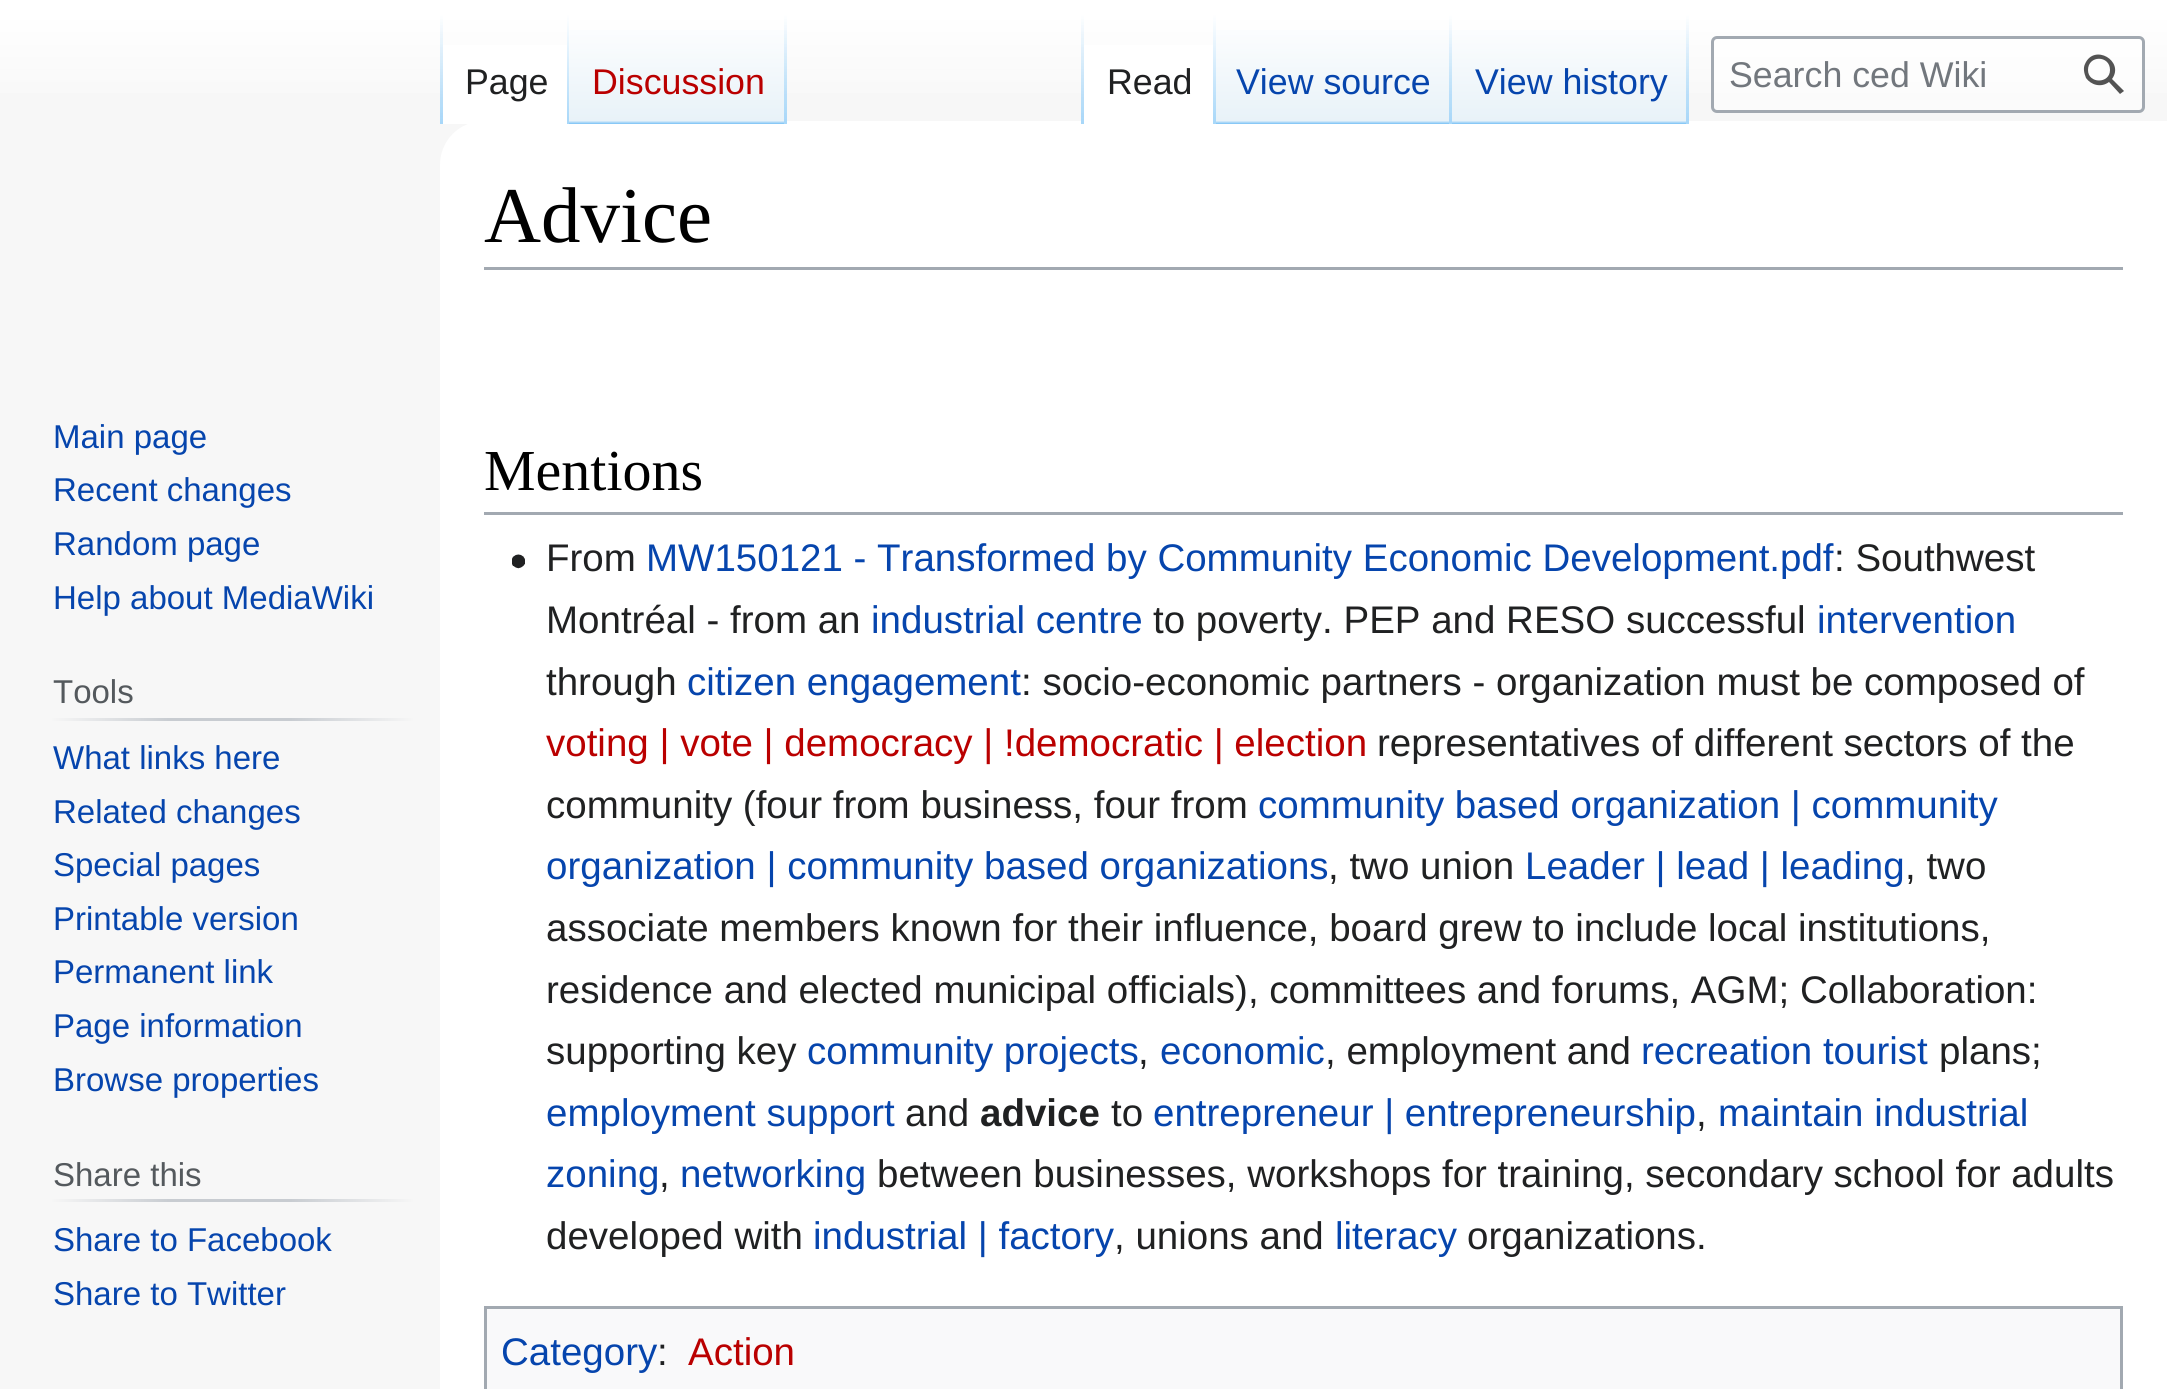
#include <cairo.h>
#include <math.h>
#include <stddef.h>


static void round_rect(cairo_t *cr, double x, double y, double w, double h, double r) {
    cairo_new_sub_path(cr);
    cairo_arc(cr, x + w - r, y + h - r, r, 0, M_PI / 2);
    cairo_arc(cr, x + r, y + h - r, r, M_PI / 2, M_PI);
    cairo_arc(cr, x + r, y + r, r, M_PI, 1.5 * M_PI);
    cairo_arc(cr, x + w - r, y + r, r, 1.5 * M_PI, 2 * M_PI);
    cairo_close_path(cr);
}

static void picture(cairo_t *cr, const char *path, double x, double y, double w, double h) {
    cairo_surface_t *image = cairo_image_surface_create_from_png(path);
    cairo_save(cr);
    cairo_set_source_surface(cr, image, x, y);
    cairo_rectangle(cr, x, y, w, h);
    cairo_fill(cr);
    cairo_restore(cr);
    cairo_surface_destroy(image);
}

int main(void) {
    cairo_surface_t *surface = cairo_image_surface_create(CAIRO_FORMAT_RGB24, 2167, 1389);
    cairo_t *cr = cairo_create(surface);
    cairo_font_options_t *options = cairo_font_options_create();
    cairo_font_options_set_hint_metrics(options, CAIRO_HINT_METRICS_OFF);
    cairo_font_options_set_hint_style(options, CAIRO_HINT_STYLE_NONE);
    cairo_set_font_options(cr, options);
    cairo_set_miter_limit(cr, 4);
    cairo_pattern_t *gradient;
    cairo_set_source_rgb(cr, 0.965, 0.965, 0.965);
    cairo_paint(cr);
    gradient = cairo_pattern_create_linear(1084, -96, 1084, 124);
    cairo_pattern_add_color_stop_rgba(gradient, 0.5, 1, 1, 1, 1);
    cairo_pattern_add_color_stop_rgba(gradient, 1, 0.965, 0.965, 0.965, 1);
    cairo_set_source(cr, gradient);
    cairo_pattern_destroy(gradient);
    cairo_rectangle(cr, 0, 0, 2167, 93);
    cairo_fill(cr);
    cairo_set_source_rgb(cr, 1, 1, 1);
    cairo_new_path(cr);
    cairo_move_to(cr, 484, 121);
    cairo_line_to(cr, 2167, 121);
    cairo_line_to(cr, 2167, 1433);
    cairo_line_to(cr, 484, 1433);
    cairo_curve_to(cr, 459.5, 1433, 440, 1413.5, 440, 1389);
    cairo_line_to(cr, 440, 165);
    cairo_curve_to(cr, 440, 140.5, 459.5, 121, 484, 121);
    cairo_close_path(cr);
    cairo_fill(cr);
    gradient = cairo_pattern_create_linear(441, 14, 441, 124);
    cairo_pattern_add_color_stop_rgba(gradient, 0, 0.655, 0.843, 0.976, 0);
    cairo_pattern_add_color_stop_rgba(gradient, 1, 0.655, 0.843, 0.976, 1);
    cairo_set_source(cr, gradient);
    cairo_pattern_destroy(gradient);
    cairo_rectangle(cr, 440, 14, 3, 110);
    cairo_fill(cr);
    cairo_set_source_rgb(cr, 1, 1, 1);
    cairo_rectangle(cr, 443, 45, 124, 79);
    cairo_fill(cr);
    gradient = cairo_pattern_create_linear(568, 14, 568, 124);
    cairo_pattern_add_color_stop_rgba(gradient, 0, 1, 1, 1, 1);
    cairo_pattern_add_color_stop_rgba(gradient, 1, 0.655, 0.843, 0.976, 1);
    cairo_set_source(cr, gradient);
    cairo_pattern_destroy(gradient);
    cairo_rectangle(cr, 567, 14, 2, 110);
    cairo_fill(cr);
    cairo_select_font_face(cr, "Liberation Sans", CAIRO_FONT_SLANT_NORMAL, CAIRO_FONT_WEIGHT_NORMAL);
    cairo_set_font_size(cr, 35.75);
    cairo_set_source_rgb(cr, 0.125, 0.129, 0.133);
    cairo_move_to(cr, 465, 94);
    cairo_show_text(cr, "Page");
    gradient = cairo_pattern_create_linear(678, 124, 678, 14);
    cairo_pattern_add_color_stop_rgba(gradient, 0, 0.467, 0.757, 0.965, 1);
    cairo_pattern_add_color_stop_rgba(gradient, 0.03, 0.91, 0.949, 0.973, 1);
    cairo_pattern_add_color_stop_rgba(gradient, 1, 1, 1, 1, 1);
    cairo_set_source(cr, gradient);
    cairo_pattern_destroy(gradient);
    cairo_rectangle(cr, 569, 30, 218, 94);
    cairo_fill(cr);
    gradient = cairo_pattern_create_linear(785, 14, 785, 124);
    cairo_pattern_add_color_stop_rgba(gradient, 0, 0.655, 0.843, 0.976, 0);
    cairo_pattern_add_color_stop_rgba(gradient, 1, 0.655, 0.843, 0.976, 1);
    cairo_set_source(cr, gradient);
    cairo_pattern_destroy(gradient);
    cairo_rectangle(cr, 784, 14, 3, 110);
    cairo_fill(cr);
    cairo_set_source_rgb(cr, 0.729, 0, 0);
    cairo_move_to(cr, 592, 94);
    cairo_show_text(cr, "Discussion");
    gradient = cairo_pattern_create_linear(1082, 14, 1082, 124);
    cairo_pattern_add_color_stop_rgba(gradient, 0, 0.655, 0.843, 0.976, 0);
    cairo_pattern_add_color_stop_rgba(gradient, 1, 0.655, 0.843, 0.976, 1);
    cairo_set_source(cr, gradient);
    cairo_pattern_destroy(gradient);
    cairo_rectangle(cr, 1081, 14, 3, 110);
    cairo_fill(cr);
    cairo_set_source_rgb(cr, 1, 1, 1);
    cairo_rectangle(cr, 1084, 45, 129, 76);
    cairo_fill(cr);
    gradient = cairo_pattern_create_linear(1214, 14, 1214, 124);
    cairo_pattern_add_color_stop_rgba(gradient, 0, 1, 1, 1, 1);
    cairo_pattern_add_color_stop_rgba(gradient, 1, 0.655, 0.843, 0.976, 1);
    cairo_set_source(cr, gradient);
    cairo_pattern_destroy(gradient);
    cairo_rectangle(cr, 1213, 14, 3, 110);
    cairo_fill(cr);
    cairo_set_source_rgb(cr, 0.125, 0.129, 0.133);
    cairo_move_to(cr, 1107, 94);
    cairo_show_text(cr, "Read");
    gradient = cairo_pattern_create_linear(1334, 124, 1334, 14);
    cairo_pattern_add_color_stop_rgba(gradient, 0, 0.467, 0.757, 0.965, 1);
    cairo_pattern_add_color_stop_rgba(gradient, 0.03, 0.91, 0.949, 0.973, 1);
    cairo_pattern_add_color_stop_rgba(gradient, 1, 1, 1, 1, 1);
    cairo_set_source(cr, gradient);
    cairo_pattern_destroy(gradient);
    cairo_rectangle(cr, 1216, 30, 236, 94);
    cairo_fill(cr);
    gradient = cairo_pattern_create_linear(1451, 14, 1451, 124);
    cairo_pattern_add_color_stop_rgba(gradient, 0, 0.655, 0.843, 0.976, 0);
    cairo_pattern_add_color_stop_rgba(gradient, 1, 0.655, 0.843, 0.976, 1);
    cairo_set_source(cr, gradient);
    cairo_pattern_destroy(gradient);
    cairo_rectangle(cr, 1449, 14, 3, 110);
    cairo_fill(cr);
    cairo_set_source_rgb(cr, 0.024, 0.271, 0.678);
    cairo_move_to(cr, 1236, 94);
    cairo_show_text(cr, "View source");
    gradient = cairo_pattern_create_linear(1570, 124, 1570, 14);
    cairo_pattern_add_color_stop_rgba(gradient, 0, 0.467, 0.757, 0.965, 1);
    cairo_pattern_add_color_stop_rgba(gradient, 0.03, 0.91, 0.949, 0.973, 1);
    cairo_pattern_add_color_stop_rgba(gradient, 1, 1, 1, 1, 1);
    cairo_set_source(cr, gradient);
    cairo_pattern_destroy(gradient);
    cairo_rectangle(cr, 1452, 30, 237, 94);
    cairo_fill(cr);
    gradient = cairo_pattern_create_linear(1687, 14, 1687, 124);
    cairo_pattern_add_color_stop_rgba(gradient, 0, 0.655, 0.843, 0.976, 0);
    cairo_pattern_add_color_stop_rgba(gradient, 1, 0.655, 0.843, 0.976, 1);
    cairo_set_source(cr, gradient);
    cairo_pattern_destroy(gradient);
    cairo_rectangle(cr, 1686, 14, 3, 110);
    cairo_fill(cr);
    cairo_set_source_rgb(cr, 0.024, 0.271, 0.678);
    cairo_move_to(cr, 1475, 94);
    cairo_show_text(cr, "View history");
    cairo_set_source_rgba(cr, 1, 1, 1, 0.5);
    round_rect(cr, 1712.5, 37.5, 431, 74, 4.5);
    cairo_fill_preserve(cr);
    cairo_set_source_rgb(cr, 0.635, 0.663, 0.694);
    cairo_set_line_width(cr, 3);
    cairo_stroke(cr);
    cairo_set_source_rgb(cr, 0.447, 0.467, 0.49);
    cairo_move_to(cr, 1729, 87);
    cairo_show_text(cr, "Search ced Wiki");
    cairo_set_source_rgb(cr, 0.325, 0.325, 0.325);
    cairo_set_fill_rule(cr, CAIRO_FILL_RULE_EVEN_ODD);
    cairo_new_path(cr);
    cairo_move_to(cr, 2109, 82);
    cairo_curve_to(cr, 2101, 88, 2091, 85, 2086, 78);
    cairo_curve_to(cr, 2084, 73, 2083, 68, 2085, 64);
    cairo_curve_to(cr, 2094, 43, 2125, 61, 2112, 79);
    cairo_line_to(cr, 2124, 91);
    cairo_line_to(cr, 2120, 94);
    cairo_close_path(cr);
    cairo_move_to(cr, 2110, 70);
    cairo_curve_to(cr, 2110, 84, 2088, 84, 2088, 70);
    cairo_curve_to(cr, 2088, 55, 2110, 55, 2110, 70);
    cairo_close_path(cr);
    cairo_fill(cr);
    cairo_set_font_size(cr, 33);
    cairo_set_source_rgb(cr, 0.024, 0.271, 0.678);
    cairo_move_to(cr, 53, 448);
    cairo_show_text(cr, "Main page");
    cairo_move_to(cr, 53, 501);
    cairo_show_text(cr, "Recent changes");
    cairo_move_to(cr, 53, 555);
    cairo_show_text(cr, "Random page");
    cairo_move_to(cr, 53, 609);
    cairo_show_text(cr, "Help about MediaWiki");
    gradient = cairo_pattern_create_linear(52, 719, 413, 719);
    cairo_pattern_add_color_stop_rgba(gradient, 0, 0.965, 0.965, 0.965, 1);
    cairo_pattern_add_color_stop_rgba(gradient, 0.33, 0.784, 0.8, 0.82, 1);
    cairo_pattern_add_color_stop_rgba(gradient, 0.66, 0.784, 0.8, 0.82, 1);
    cairo_pattern_add_color_stop_rgba(gradient, 1, 0.965, 0.965, 0.965, 1);
    cairo_set_source(cr, gradient);
    cairo_pattern_destroy(gradient);
    cairo_rectangle(cr, 52, 718, 361, 3);
    cairo_fill(cr);
    cairo_set_source_rgb(cr, 0.329, 0.349, 0.365);
    cairo_move_to(cr, 53, 703);
    cairo_show_text(cr, "Tools");
    cairo_set_source_rgb(cr, 0.024, 0.271, 0.678);
    cairo_move_to(cr, 53, 769);
    cairo_show_text(cr, "What links here");
    cairo_move_to(cr, 53, 823);
    cairo_show_text(cr, "Related changes");
    cairo_move_to(cr, 53, 876);
    cairo_show_text(cr, "Special pages");
    cairo_move_to(cr, 53, 930);
    cairo_show_text(cr, "Printable version");
    cairo_move_to(cr, 53, 983);
    cairo_show_text(cr, "Permanent link");
    cairo_move_to(cr, 53, 1037);
    cairo_show_text(cr, "Page information");
    cairo_move_to(cr, 53, 1091);
    cairo_show_text(cr, "Browse properties");
    gradient = cairo_pattern_create_linear(52, 1200, 413, 1200);
    cairo_pattern_add_color_stop_rgba(gradient, 0, 0.965, 0.965, 0.965, 1);
    cairo_pattern_add_color_stop_rgba(gradient, 0.33, 0.784, 0.8, 0.82, 1);
    cairo_pattern_add_color_stop_rgba(gradient, 0.66, 0.784, 0.8, 0.82, 1);
    cairo_pattern_add_color_stop_rgba(gradient, 1, 0.965, 0.965, 0.965, 1);
    cairo_set_source(cr, gradient);
    cairo_pattern_destroy(gradient);
    cairo_rectangle(cr, 52, 1199, 361, 3);
    cairo_fill(cr);
    cairo_set_source_rgb(cr, 0.329, 0.349, 0.365);
    cairo_move_to(cr, 53, 1186);
    cairo_show_text(cr, "Share this");
    cairo_set_source_rgb(cr, 0.024, 0.271, 0.678);
    cairo_move_to(cr, 53, 1251);
    cairo_show_text(cr, "Share to Facebook");
    cairo_move_to(cr, 53, 1305);
    cairo_show_text(cr, "Share to Twitter");
    cairo_set_source_rgb(cr, 0.635, 0.663, 0.694);
    cairo_rectangle(cr, 484, 267, 1639, 3);
    cairo_fill(cr);
    cairo_select_font_face(cr, "Liberation Serif", CAIRO_FONT_SLANT_NORMAL, CAIRO_FONT_WEIGHT_NORMAL);
    cairo_set_font_size(cr, 79);
    cairo_set_source_rgb(cr, 0, 0, 0);
    cairo_move_to(cr, 484, 242);
    cairo_show_text(cr, "Advice");
    cairo_set_source_rgb(cr, 0.635, 0.663, 0.694);
    cairo_rectangle(cr, 484, 512, 1639, 3);
    cairo_fill(cr);
    cairo_set_font_size(cr, 58);
    cairo_set_source_rgb(cr, 0, 0, 0);
    cairo_move_to(cr, 484, 490);
    cairo_show_text(cr, "Mentions");
    picture(cr, "img1.png", 512, 554, 13, 15);
    cairo_select_font_face(cr, "Liberation Sans", CAIRO_FONT_SLANT_NORMAL, CAIRO_FONT_WEIGHT_NORMAL);
    cairo_set_font_size(cr, 38.5);
    cairo_set_source_rgb(cr, 0.125, 0.129, 0.133);
    cairo_move_to(cr, 546, 571);
    cairo_show_text(cr, "From");
    cairo_set_source_rgb(cr, 0.024, 0.271, 0.678);
    cairo_move_to(cr, 646, 571);
    cairo_show_text(cr, "MW150121 - Transformed by Community Economic Development.pdf");
    cairo_set_source_rgb(cr, 0.125, 0.129, 0.133);
    cairo_move_to(cr, 1834, 571);
    cairo_show_text(cr, ": Southwest");
    cairo_move_to(cr, 546, 633);
    cairo_show_text(cr, "Montréal - from an");
    cairo_set_source_rgb(cr, 0.024, 0.271, 0.678);
    cairo_move_to(cr, 871, 633);
    cairo_show_text(cr, "industrial centre");
    cairo_set_source_rgb(cr, 0.125, 0.129, 0.133);
    cairo_move_to(cr, 1153, 633);
    cairo_show_text(cr, "to poverty. PEP and RESO successful");
    cairo_set_source_rgb(cr, 0.024, 0.271, 0.678);
    cairo_move_to(cr, 1817, 633);
    cairo_show_text(cr, "intervention");
    cairo_set_source_rgb(cr, 0.125, 0.129, 0.133);
    cairo_move_to(cr, 546, 695);
    cairo_show_text(cr, "through");
    cairo_set_source_rgb(cr, 0.024, 0.271, 0.678);
    cairo_move_to(cr, 687, 695);
    cairo_show_text(cr, "citizen engagement");
    cairo_set_source_rgb(cr, 0.125, 0.129, 0.133);
    cairo_move_to(cr, 1021, 695);
    cairo_show_text(cr, ": socio-economic partners - organization must be composed of");
    cairo_set_source_rgb(cr, 0.729, 0, 0);
    cairo_move_to(cr, 546, 756);
    cairo_show_text(cr, "voting | vote | democracy | !democratic | election");
    cairo_set_source_rgb(cr, 0.125, 0.129, 0.133);
    cairo_move_to(cr, 1377, 756);
    cairo_show_text(cr, "representatives of different sectors of the");
    cairo_move_to(cr, 546, 818);
    cairo_show_text(cr, "community (four from business, four from");
    cairo_set_source_rgb(cr, 0.024, 0.271, 0.678);
    cairo_move_to(cr, 1258, 818);
    cairo_show_text(cr, "community based organization | community");
    cairo_move_to(cr, 546, 879);
    cairo_show_text(cr, "organization | community based organizations");
    cairo_set_source_rgb(cr, 0.125, 0.129, 0.133);
    cairo_move_to(cr, 1328, 879);
    cairo_show_text(cr, ", two union");
    cairo_set_source_rgb(cr, 0.024, 0.271, 0.678);
    cairo_move_to(cr, 1525, 879);
    cairo_show_text(cr, "Leader | lead | leading");
    cairo_set_source_rgb(cr, 0.125, 0.129, 0.133);
    cairo_move_to(cr, 1905, 879);
    cairo_show_text(cr, ", two");
    cairo_move_to(cr, 546, 941);
    cairo_show_text(cr, "associate members known for their influence, board grew to include local institutions,");
    cairo_move_to(cr, 546, 1003);
    cairo_show_text(cr, "residence and elected municipal officials), committees and forums, AGM; Collaboration:");
    cairo_move_to(cr, 546, 1064);
    cairo_show_text(cr, "supporting key");
    cairo_set_source_rgb(cr, 0.024, 0.271, 0.678);
    cairo_move_to(cr, 807, 1064);
    cairo_show_text(cr, "community projects");
    cairo_set_source_rgb(cr, 0.125, 0.129, 0.133);
    cairo_move_to(cr, 1138, 1064);
    cairo_show_text(cr, ",");
    cairo_set_source_rgb(cr, 0.024, 0.271, 0.678);
    cairo_move_to(cr, 1160, 1064);
    cairo_show_text(cr, "economic");
    cairo_set_source_rgb(cr, 0.125, 0.129, 0.133);
    cairo_move_to(cr, 1325, 1064);
    cairo_show_text(cr, ", employment and");
    cairo_set_source_rgb(cr, 0.024, 0.271, 0.678);
    cairo_move_to(cr, 1641, 1064);
    cairo_show_text(cr, "recreation tourist");
    cairo_set_source_rgb(cr, 0.125, 0.129, 0.133);
    cairo_move_to(cr, 1939, 1064);
    cairo_show_text(cr, "plans;");
    cairo_set_source_rgb(cr, 0.024, 0.271, 0.678);
    cairo_move_to(cr, 546, 1126);
    cairo_show_text(cr, "employment support");
    cairo_set_source_rgb(cr, 0.125, 0.129, 0.133);
    cairo_move_to(cr, 905, 1126);
    cairo_show_text(cr, "and");
    cairo_select_font_face(cr, "Liberation Sans", CAIRO_FONT_SLANT_NORMAL, CAIRO_FONT_WEIGHT_BOLD);
    cairo_move_to(cr, 980, 1126);
    cairo_show_text(cr, "advice");
    cairo_select_font_face(cr, "Liberation Sans", CAIRO_FONT_SLANT_NORMAL, CAIRO_FONT_WEIGHT_NORMAL);
    cairo_move_to(cr, 1111, 1126);
    cairo_show_text(cr, "to");
    cairo_set_source_rgb(cr, 0.024, 0.271, 0.678);
    cairo_move_to(cr, 1153, 1126);
    cairo_show_text(cr, "entrepreneur | entrepreneurship");
    cairo_set_source_rgb(cr, 0.125, 0.129, 0.133);
    cairo_move_to(cr, 1696, 1126);
    cairo_show_text(cr, ",");
    cairo_set_source_rgb(cr, 0.024, 0.271, 0.678);
    cairo_move_to(cr, 1718, 1126);
    cairo_show_text(cr, "maintain industrial");
    cairo_move_to(cr, 546, 1187);
    cairo_show_text(cr, "zoning");
    cairo_set_source_rgb(cr, 0.125, 0.129, 0.133);
    cairo_move_to(cr, 659, 1187);
    cairo_show_text(cr, ",");
    cairo_set_source_rgb(cr, 0.024, 0.271, 0.678);
    cairo_move_to(cr, 680, 1187);
    cairo_show_text(cr, "networking");
    cairo_set_source_rgb(cr, 0.125, 0.129, 0.133);
    cairo_move_to(cr, 877, 1187);
    cairo_show_text(cr, "between businesses, workshops for training, secondary school for adults");
    cairo_move_to(cr, 546, 1249);
    cairo_show_text(cr, "developed with");
    cairo_set_source_rgb(cr, 0.024, 0.271, 0.678);
    cairo_move_to(cr, 813, 1249);
    cairo_show_text(cr, "industrial | factory");
    cairo_set_source_rgb(cr, 0.125, 0.129, 0.133);
    cairo_move_to(cr, 1114, 1249);
    cairo_show_text(cr, ", unions and");
    cairo_set_source_rgb(cr, 0.024, 0.271, 0.678);
    cairo_move_to(cr, 1335, 1249);
    cairo_show_text(cr, "literacy");
    cairo_set_source_rgb(cr, 0.125, 0.129, 0.133);
    cairo_move_to(cr, 1467, 1249);
    cairo_show_text(cr, "organizations.");
    cairo_set_source_rgb(cr, 0.973, 0.976, 0.98);
    cairo_rectangle(cr, 485.5, 1307.5, 1636, 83);
    cairo_fill_preserve(cr);
    cairo_set_source_rgb(cr, 0.635, 0.663, 0.694);
    cairo_stroke(cr);
    cairo_set_source_rgb(cr, 0.024, 0.271, 0.678);
    cairo_move_to(cr, 501, 1365);
    cairo_show_text(cr, "Category");
    cairo_set_source_rgb(cr, 0.125, 0.129, 0.133);
    cairo_move_to(cr, 657, 1365);
    cairo_show_text(cr, ":");
    cairo_set_source_rgb(cr, 0.729, 0, 0);
    cairo_move_to(cr, 688, 1365);
    cairo_show_text(cr, "Action");
    cairo_surface_write_to_png(surface, "page.png");
    cairo_font_options_destroy(options);
    cairo_destroy(cr);
    cairo_surface_destroy(surface);
    return 0;
}
